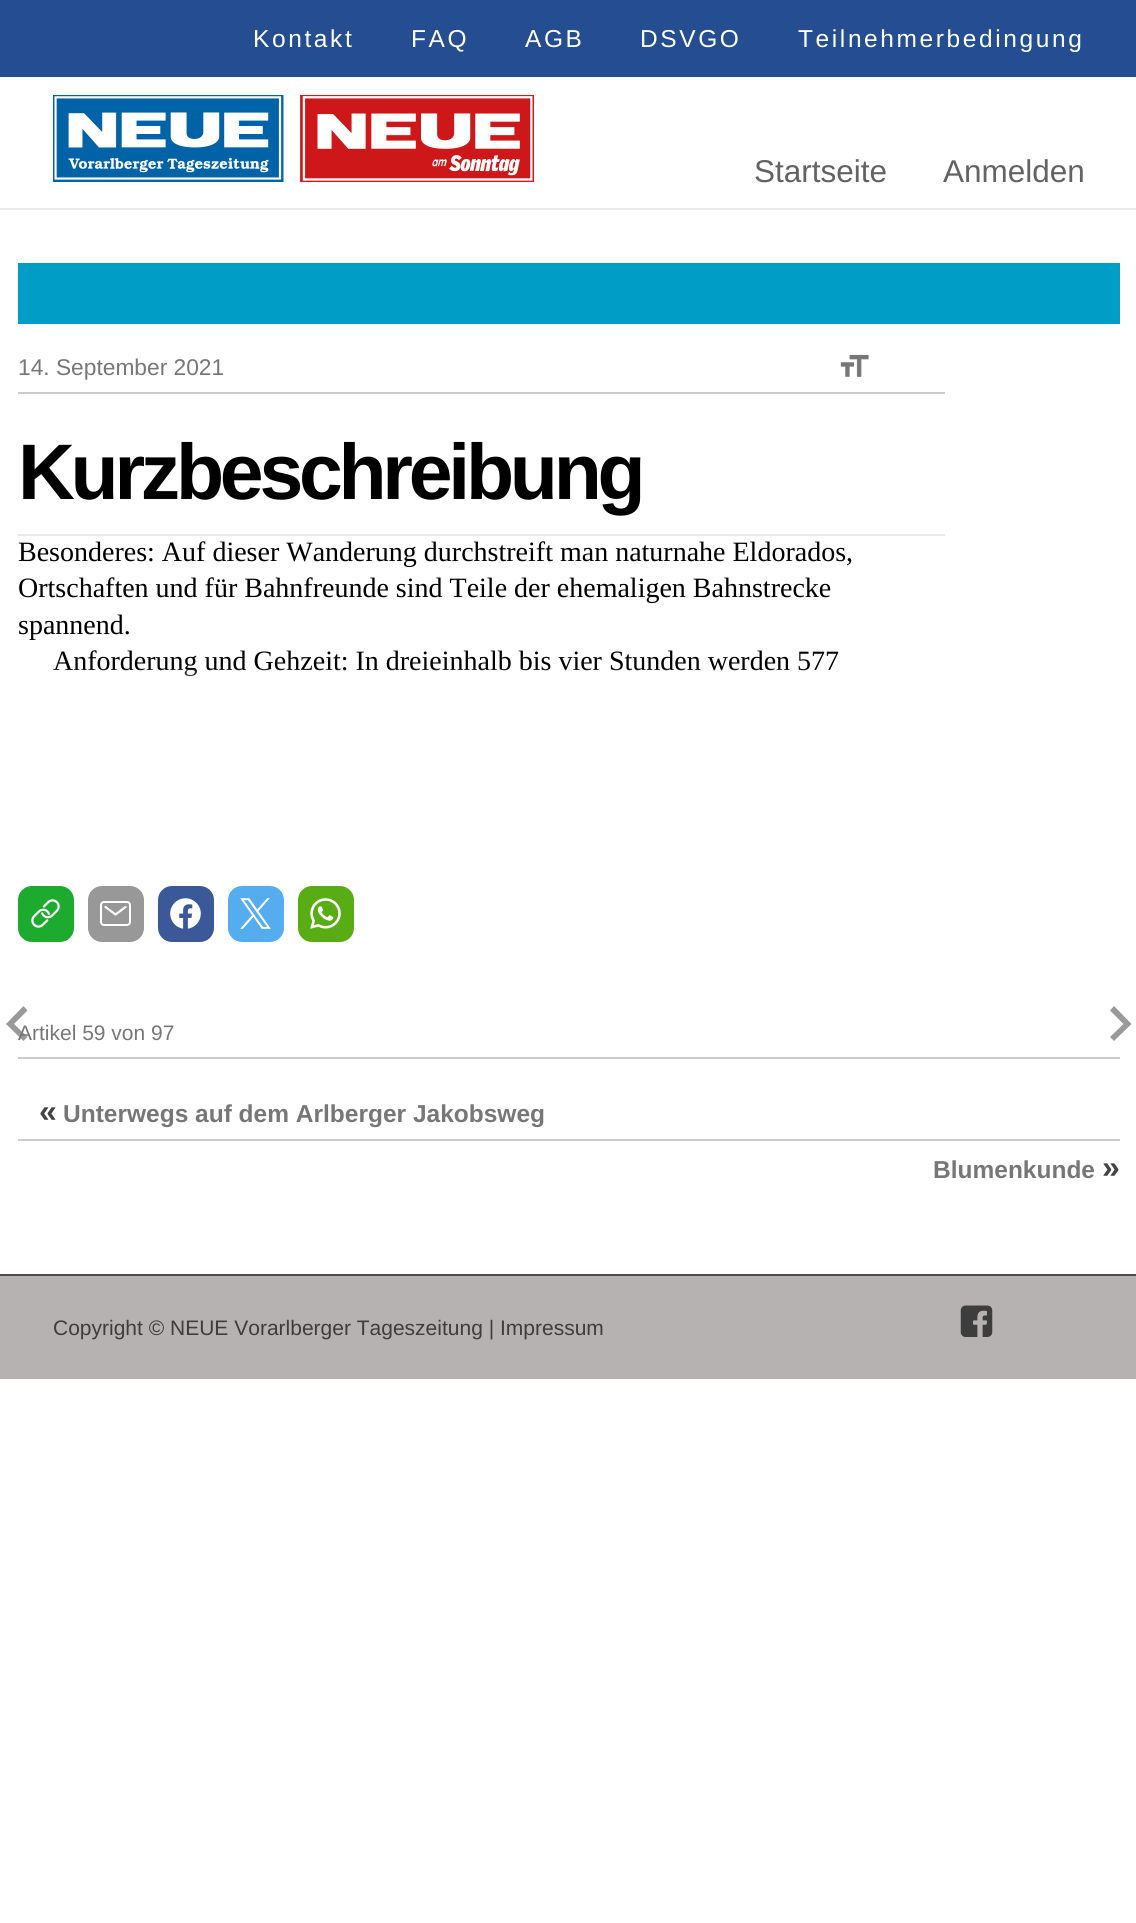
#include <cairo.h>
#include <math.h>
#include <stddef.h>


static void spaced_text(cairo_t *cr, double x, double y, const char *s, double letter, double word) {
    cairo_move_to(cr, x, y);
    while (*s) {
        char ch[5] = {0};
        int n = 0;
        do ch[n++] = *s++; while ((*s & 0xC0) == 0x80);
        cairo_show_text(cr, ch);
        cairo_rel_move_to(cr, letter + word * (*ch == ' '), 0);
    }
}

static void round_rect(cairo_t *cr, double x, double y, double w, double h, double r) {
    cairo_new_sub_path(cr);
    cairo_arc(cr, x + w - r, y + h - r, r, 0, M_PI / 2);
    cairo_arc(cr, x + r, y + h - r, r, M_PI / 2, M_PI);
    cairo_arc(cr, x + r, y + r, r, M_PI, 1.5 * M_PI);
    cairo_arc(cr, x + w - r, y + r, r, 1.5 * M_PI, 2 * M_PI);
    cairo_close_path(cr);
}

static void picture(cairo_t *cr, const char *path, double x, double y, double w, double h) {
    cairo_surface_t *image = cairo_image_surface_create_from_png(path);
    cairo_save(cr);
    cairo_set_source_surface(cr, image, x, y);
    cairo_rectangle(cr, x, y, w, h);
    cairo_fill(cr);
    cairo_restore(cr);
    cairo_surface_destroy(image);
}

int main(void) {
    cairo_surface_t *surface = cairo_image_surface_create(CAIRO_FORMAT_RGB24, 1136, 1923);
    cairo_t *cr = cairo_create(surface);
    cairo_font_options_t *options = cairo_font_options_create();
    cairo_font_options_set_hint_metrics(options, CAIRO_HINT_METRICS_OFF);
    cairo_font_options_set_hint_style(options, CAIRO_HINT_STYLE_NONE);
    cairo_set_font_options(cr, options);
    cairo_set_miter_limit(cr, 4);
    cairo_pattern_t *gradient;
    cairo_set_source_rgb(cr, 1, 1, 1);
    cairo_paint(cr);
    cairo_set_source_rgb(cr, 0.914, 0.914, 0.914);
    cairo_rectangle(cr, 0, 208, 1136, 2);
    cairo_fill(cr);
    cairo_set_source_rgb(cr, 0.141, 0.302, 0.573);
    cairo_rectangle(cr, 0, 0, 1136, 77);
    cairo_fill(cr);
    cairo_select_font_face(cr, "Liberation Sans", CAIRO_FONT_SLANT_NORMAL, CAIRO_FONT_WEIGHT_NORMAL);
    cairo_set_font_size(cr, 24.5);
    cairo_set_source_rgb(cr, 1, 1, 1);
    spaced_text(cr, 253, 47, "Kontakt", 2.6, 0);
    spaced_text(cr, 411, 47, "FAQ", 2.6, 0);
    spaced_text(cr, 525, 47, "AGB", 2.6, 0);
    spaced_text(cr, 640, 47, "DSVGO", 2.6, 0);
    spaced_text(cr, 798, 47, "Teilnehmerbedingung", 2.6, 0);
    picture(cr, "img1.png", 53, 95, 481, 87);
    cairo_set_font_size(cr, 31.5);
    cairo_set_source_rgb(cr, 0.388, 0.388, 0.388);
    cairo_move_to(cr, 754, 182);
    cairo_show_text(cr, "Startseite");
    cairo_move_to(cr, 943, 182);
    cairo_show_text(cr, "Anmelden");
    cairo_set_source_rgb(cr, 0, 0.616, 0.776);
    cairo_rectangle(cr, 18, 263, 1102, 61);
    cairo_fill(cr);
    cairo_set_source_rgb(cr, 0.8, 0.8, 0.8);
    cairo_rectangle(cr, 18, 392, 927, 2);
    cairo_fill(cr);
    cairo_set_font_size(cr, 22.75);
    cairo_set_source_rgb(cr, 0.467, 0.467, 0.467);
    cairo_move_to(cr, 18, 375);
    cairo_show_text(cr, "14. September 2021");
    picture(cr, "img2.png", 840, 354, 29, 23);
    cairo_set_source_rgb(cr, 0.914, 0.914, 0.914);
    cairo_rectangle(cr, 18, 534, 927, 2);
    cairo_fill(cr);
    cairo_select_font_face(cr, "Liberation Sans", CAIRO_FONT_SLANT_NORMAL, CAIRO_FONT_WEIGHT_BOLD);
    cairo_set_font_size(cr, 78.75);
    cairo_set_source_rgb(cr, 0, 0, 0);
    spaced_text(cr, 18, 499, "Kurzbeschreibung", -4.25, 0);
    cairo_select_font_face(cr, "Liberation Serif", CAIRO_FONT_SLANT_NORMAL, CAIRO_FONT_WEIGHT_NORMAL);
    cairo_set_font_size(cr, 28);
    cairo_move_to(cr, 18, 561);
    cairo_show_text(cr, "Besonderes: Auf dieser Wanderung durchstreift man naturnahe Eldorados,");
    cairo_move_to(cr, 18, 597);
    cairo_show_text(cr, "Ortschaften und für Bahnfreunde sind Teile der ehemaligen Bahnstrecke");
    cairo_move_to(cr, 18, 634);
    cairo_show_text(cr, "spannend.");
    cairo_move_to(cr, 53, 670);
    cairo_show_text(cr, "Anforderung und Gehzeit: In dreieinhalb bis vier Stunden werden 577");
    gradient = cairo_pattern_create_linear(481, 781, 481, 669);
    cairo_pattern_add_color_stop_rgba(gradient, 0.6, 1, 1, 1, 1);
    cairo_pattern_add_color_stop_rgba(gradient, 1, 1, 1, 1, 0.1);
    cairo_set_source(cr, gradient);
    cairo_pattern_destroy(gradient);
    cairo_rectangle(cr, 52, 669, 778, 7);
    cairo_fill(cr);
    cairo_set_source_rgb(cr, 0.11, 0.667, 0.184);
    round_rect(cr, 18, 886, 56, 56, 14);
    cairo_fill(cr);
    picture(cr, "img3.png", 31, 899, 29, 29);
    cairo_set_source_rgb(cr, 0.596, 0.596, 0.596);
    round_rect(cr, 88, 886, 56, 56, 14);
    cairo_fill(cr);
    round_rect(cr, 101, 902, 29, 23, 3);
    cairo_set_source_rgb(cr, 1, 1, 1);
    cairo_stroke(cr);
    cairo_new_path(cr);
    cairo_move_to(cr, 105.5, 907);
    cairo_line_to(cr, 115.5, 914.5);
    cairo_line_to(cr, 125.5, 907);
    cairo_set_line_width(cr, 2.2);
    cairo_set_line_cap(cr, CAIRO_LINE_CAP_ROUND);
    cairo_set_line_join(cr, CAIRO_LINE_JOIN_ROUND);
    cairo_stroke(cr);
    cairo_set_source_rgb(cr, 0.231, 0.349, 0.596);
    round_rect(cr, 158, 886, 56, 56, 14);
    cairo_fill(cr);
    picture(cr, "img4.png", 170, 898, 31, 31);
    cairo_set_source_rgb(cr, 0.333, 0.675, 0.933);
    round_rect(cr, 228, 886, 56, 56, 14);
    cairo_fill(cr);
    picture(cr, "img5.png", 240, 898, 31, 31);
    cairo_set_source_rgb(cr, 0.345, 0.678, 0.082);
    round_rect(cr, 298, 886, 56, 56, 14);
    cairo_fill(cr);
    picture(cr, "img6.png", 310, 898, 31, 31);
    cairo_select_font_face(cr, "Liberation Sans", CAIRO_FONT_SLANT_NORMAL, CAIRO_FONT_WEIGHT_NORMAL);
    cairo_set_font_size(cr, 21);
    cairo_set_source_rgb(cr, 0.467, 0.467, 0.467);
    cairo_move_to(cr, 18, 1040);
    cairo_show_text(cr, "Artikel 59 von 97");
    cairo_set_source_rgba(cr, 0.467, 0.467, 0.467, 0.75);
    cairo_new_path(cr);
    cairo_move_to(cr, 27.5, 1037);
    cairo_line_to(cr, 14, 1024);
    cairo_line_to(cr, 27.5, 1010.5);
    cairo_line_to(cr, 23.5, 1006);
    cairo_line_to(cr, 6, 1024);
    cairo_line_to(cr, 23.5, 1041);
    cairo_close_path(cr);
    cairo_fill(cr);
    cairo_set_source_rgb(cr, 0.6, 0.6, 0.6);
    cairo_new_path(cr);
    cairo_move_to(cr, 1110, 1037);
    cairo_line_to(cr, 1123.5, 1024);
    cairo_line_to(cr, 1110, 1010.5);
    cairo_line_to(cr, 1114, 1006);
    cairo_line_to(cr, 1131.5, 1024);
    cairo_line_to(cr, 1114, 1041);
    cairo_close_path(cr);
    cairo_fill(cr);
    cairo_set_source_rgb(cr, 0.8, 0.8, 0.8);
    cairo_rectangle(cr, 18, 1057, 1102, 2);
    cairo_fill(cr);
    cairo_rectangle(cr, 18, 1139, 1102, 2);
    cairo_fill(cr);
    cairo_select_font_face(cr, "Liberation Sans", CAIRO_FONT_SLANT_NORMAL, CAIRO_FONT_WEIGHT_BOLD);
    cairo_set_font_size(cr, 32);
    cairo_set_source_rgb(cr, 0.267, 0.267, 0.267);
    cairo_move_to(cr, 39, 1122);
    cairo_show_text(cr, "«");
    cairo_set_font_size(cr, 24.5);
    cairo_set_source_rgb(cr, 0.467, 0.467, 0.467);
    cairo_move_to(cr, 63, 1122);
    cairo_show_text(cr, "Unterwegs auf dem Arlberger Jakobsweg");
    cairo_move_to(cr, 933, 1178);
    cairo_show_text(cr, "Blumenkunde");
    cairo_set_font_size(cr, 32);
    cairo_set_source_rgb(cr, 0.267, 0.267, 0.267);
    cairo_move_to(cr, 1102, 1178);
    cairo_show_text(cr, "»");
    cairo_set_source_rgb(cr, 0.718, 0.698, 0.698);
    cairo_rectangle(cr, 0, 1276, 1136, 103);
    cairo_fill(cr);
    cairo_set_source_rgb(cr, 0.294, 0.298, 0.302);
    cairo_rectangle(cr, 0, 1274, 1136, 2);
    cairo_fill(cr);
    cairo_select_font_face(cr, "Liberation Sans", CAIRO_FONT_SLANT_NORMAL, CAIRO_FONT_WEIGHT_NORMAL);
    cairo_set_font_size(cr, 21);
    cairo_set_source_rgb(cr, 0.239, 0.239, 0.239);
    cairo_move_to(cr, 53, 1335);
    cairo_show_text(cr, "Copyright © NEUE Vorarlberger Tageszeitung | Impressum");
    picture(cr, "img7.png", 960, 1305, 33, 32);
    cairo_surface_write_to_png(surface, "page.png");
    cairo_font_options_destroy(options);
    cairo_destroy(cr);
    cairo_surface_destroy(surface);
    return 0;
}
